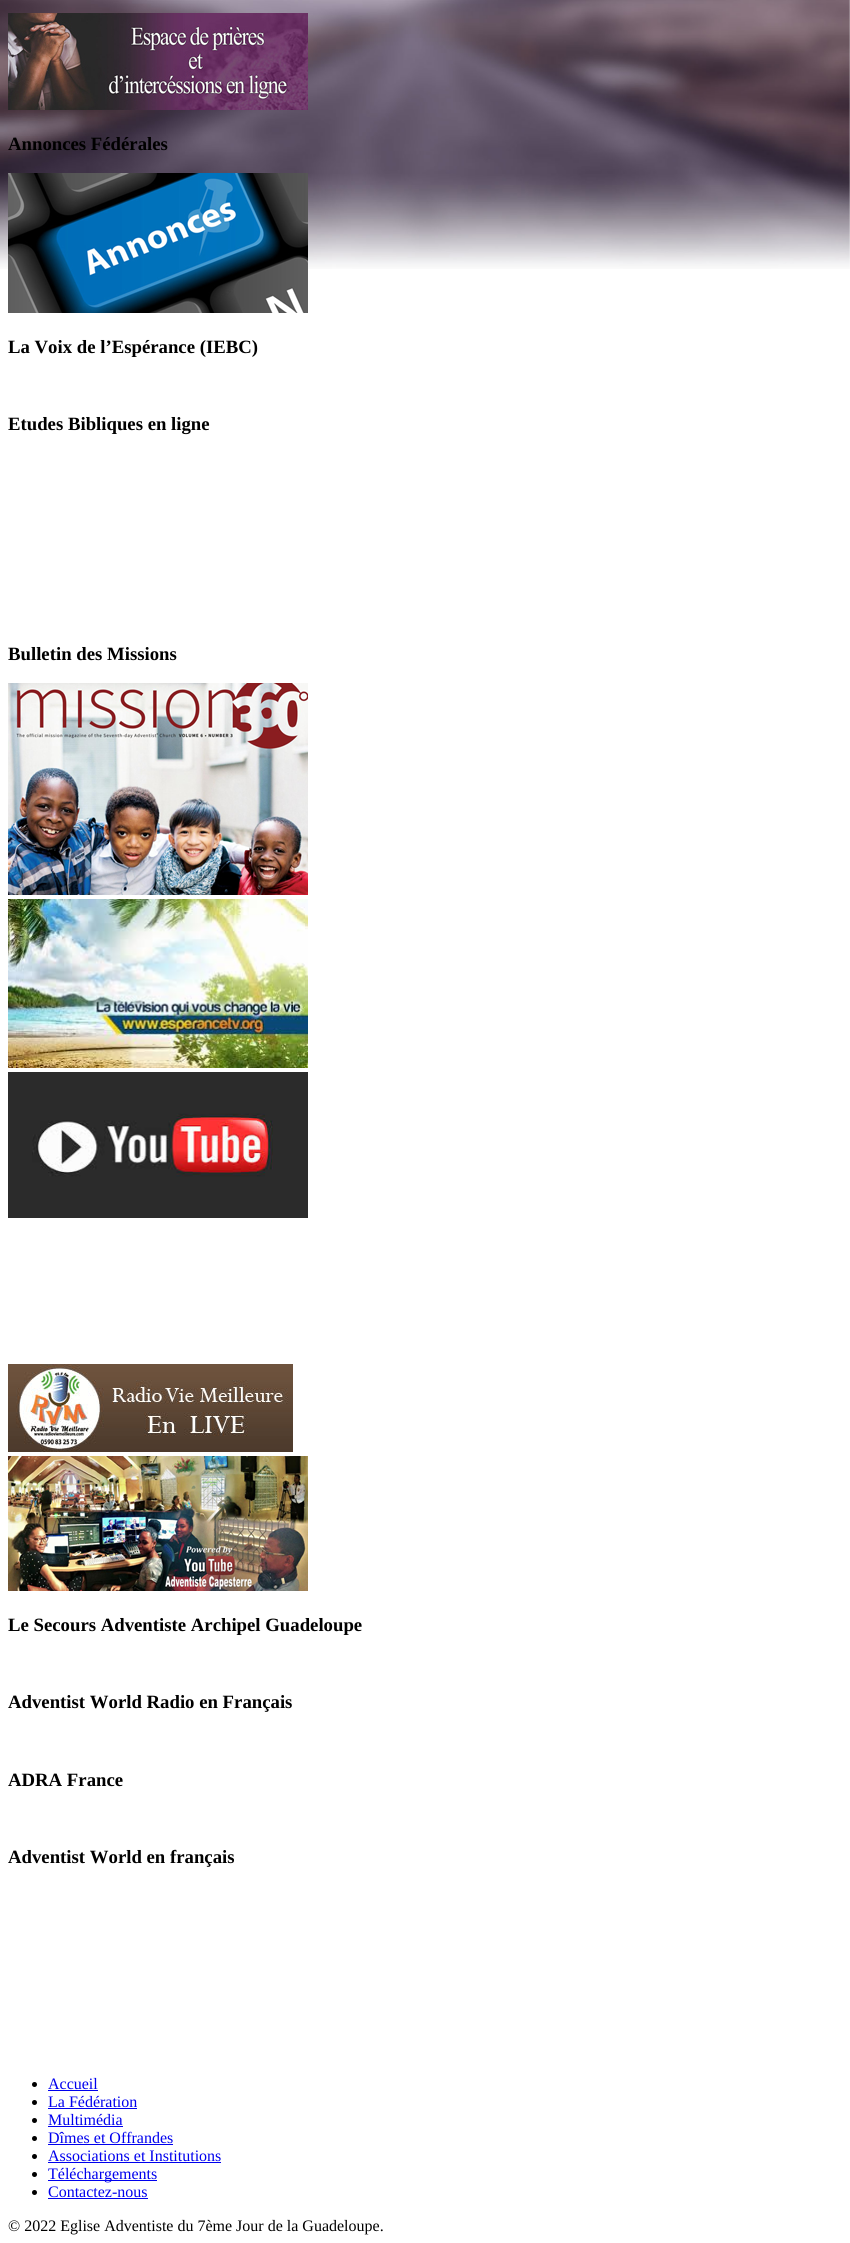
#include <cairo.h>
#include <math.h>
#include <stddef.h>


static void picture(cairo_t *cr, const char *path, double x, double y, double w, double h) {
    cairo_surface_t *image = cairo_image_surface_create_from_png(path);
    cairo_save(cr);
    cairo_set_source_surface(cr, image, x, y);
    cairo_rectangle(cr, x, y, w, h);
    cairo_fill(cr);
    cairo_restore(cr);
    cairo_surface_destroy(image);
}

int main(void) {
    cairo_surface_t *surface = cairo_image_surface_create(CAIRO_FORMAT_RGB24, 850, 2243);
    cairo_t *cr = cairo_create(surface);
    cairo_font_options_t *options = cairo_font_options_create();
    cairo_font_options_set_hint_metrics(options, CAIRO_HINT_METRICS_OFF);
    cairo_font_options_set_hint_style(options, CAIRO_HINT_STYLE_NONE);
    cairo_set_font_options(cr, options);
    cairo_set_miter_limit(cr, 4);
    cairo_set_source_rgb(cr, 1, 1, 1);
    cairo_paint(cr);
    picture(cr, "img1.png", 0, 0, 850, 269);
    picture(cr, "img2.png", 8, 13, 300, 97);
    cairo_select_font_face(cr, "Liberation Serif", CAIRO_FONT_SLANT_NORMAL, CAIRO_FONT_WEIGHT_BOLD);
    cairo_set_font_size(cr, 18.75);
    cairo_set_source_rgb(cr, 0, 0, 0);
    cairo_move_to(cr, 8, 150);
    cairo_show_text(cr, "Annonces Fédérales");
    picture(cr, "img3.png", 8, 173, 300, 140);
    cairo_move_to(cr, 8, 353);
    cairo_show_text(cr, "La Voix de l’Espérance (IEBC)");
    cairo_move_to(cr, 8, 430);
    cairo_show_text(cr, "Etudes Bibliques en ligne");
    cairo_move_to(cr, 8, 660);
    cairo_show_text(cr, "Bulletin des Missions");
    picture(cr, "img4.png", 8, 683, 300, 212);
    picture(cr, "img5.png", 8, 899, 300, 169);
    picture(cr, "img6.png", 8, 1072, 300, 146);
    picture(cr, "img7.png", 8, 1364, 285, 88);
    picture(cr, "img8.png", 8, 1456, 300, 135);
    cairo_move_to(cr, 8, 1631);
    cairo_show_text(cr, "Le Secours Adventiste Archipel Guadeloupe");
    cairo_move_to(cr, 8, 1708);
    cairo_show_text(cr, "Adventist World Radio en Français");
    cairo_move_to(cr, 8, 1786);
    cairo_show_text(cr, "ADRA France");
    cairo_move_to(cr, 8, 1863);
    cairo_show_text(cr, "Adventist World en français");
    cairo_new_path(cr);
    cairo_arc(cr, 34.5, 2084.5, 2.5, 0, 2 * M_PI);
    cairo_fill(cr);
    cairo_select_font_face(cr, "Liberation Serif", CAIRO_FONT_SLANT_NORMAL, CAIRO_FONT_WEIGHT_NORMAL);
    cairo_set_font_size(cr, 16);
    cairo_set_source_rgb(cr, 0, 0, 0.933);
    cairo_move_to(cr, 48, 2089);
    cairo_show_text(cr, "Accueil");
    cairo_rectangle(cr, 48, 2090, 50, 1);
    cairo_fill(cr);
    cairo_set_source_rgb(cr, 0, 0, 0);
    cairo_arc(cr, 34.5, 2102.5, 2.5, 0, 2 * M_PI);
    cairo_fill(cr);
    cairo_set_source_rgb(cr, 0, 0, 0.933);
    cairo_move_to(cr, 48, 2107);
    cairo_show_text(cr, "La Fédération");
    cairo_rectangle(cr, 48, 2108, 89, 1);
    cairo_fill(cr);
    cairo_set_source_rgb(cr, 0, 0, 0);
    cairo_arc(cr, 34.5, 2120.5, 2.5, 0, 2 * M_PI);
    cairo_fill(cr);
    cairo_set_source_rgb(cr, 0, 0, 0.933);
    cairo_move_to(cr, 48, 2125);
    cairo_show_text(cr, "Multimédia");
    cairo_rectangle(cr, 48, 2126, 75, 1);
    cairo_fill(cr);
    cairo_set_source_rgb(cr, 0, 0, 0);
    cairo_arc(cr, 34.5, 2138.5, 2.5, 0, 2 * M_PI);
    cairo_fill(cr);
    cairo_set_source_rgb(cr, 0, 0, 0.933);
    cairo_move_to(cr, 48, 2143);
    cairo_show_text(cr, "Dîmes et Offrandes");
    cairo_rectangle(cr, 48, 2144, 125, 1);
    cairo_fill(cr);
    cairo_set_source_rgb(cr, 0, 0, 0);
    cairo_arc(cr, 34.5, 2156.5, 2.5, 0, 2 * M_PI);
    cairo_fill(cr);
    cairo_set_source_rgb(cr, 0, 0, 0.933);
    cairo_move_to(cr, 48, 2161);
    cairo_show_text(cr, "Associations et Institutions");
    cairo_rectangle(cr, 48, 2162, 173, 1);
    cairo_fill(cr);
    cairo_set_source_rgb(cr, 0, 0, 0);
    cairo_arc(cr, 34.5, 2174.5, 2.5, 0, 2 * M_PI);
    cairo_fill(cr);
    cairo_set_source_rgb(cr, 0, 0, 0.933);
    cairo_rectangle(cr, 48, 2180, 109, 1);
    cairo_fill(cr);
    cairo_move_to(cr, 48, 2179);
    cairo_show_text(cr, "Téléchargements");
    cairo_set_source_rgb(cr, 0, 0, 0);
    cairo_new_path(cr);
    cairo_arc(cr, 34.5, 2192.5, 2.5, 0, 2 * M_PI);
    cairo_fill(cr);
    cairo_set_source_rgb(cr, 0, 0, 0.933);
    cairo_move_to(cr, 48, 2197);
    cairo_show_text(cr, "Contactez-nous");
    cairo_rectangle(cr, 48, 2198, 100, 1);
    cairo_fill(cr);
    cairo_set_source_rgb(cr, 0, 0, 0);
    cairo_move_to(cr, 8, 2231);
    cairo_show_text(cr, "© 2022 Eglise Adventiste du 7ème Jour de la Guadeloupe.");
    cairo_surface_write_to_png(surface, "page.png");
    cairo_font_options_destroy(options);
    cairo_destroy(cr);
    cairo_surface_destroy(surface);
    return 0;
}
